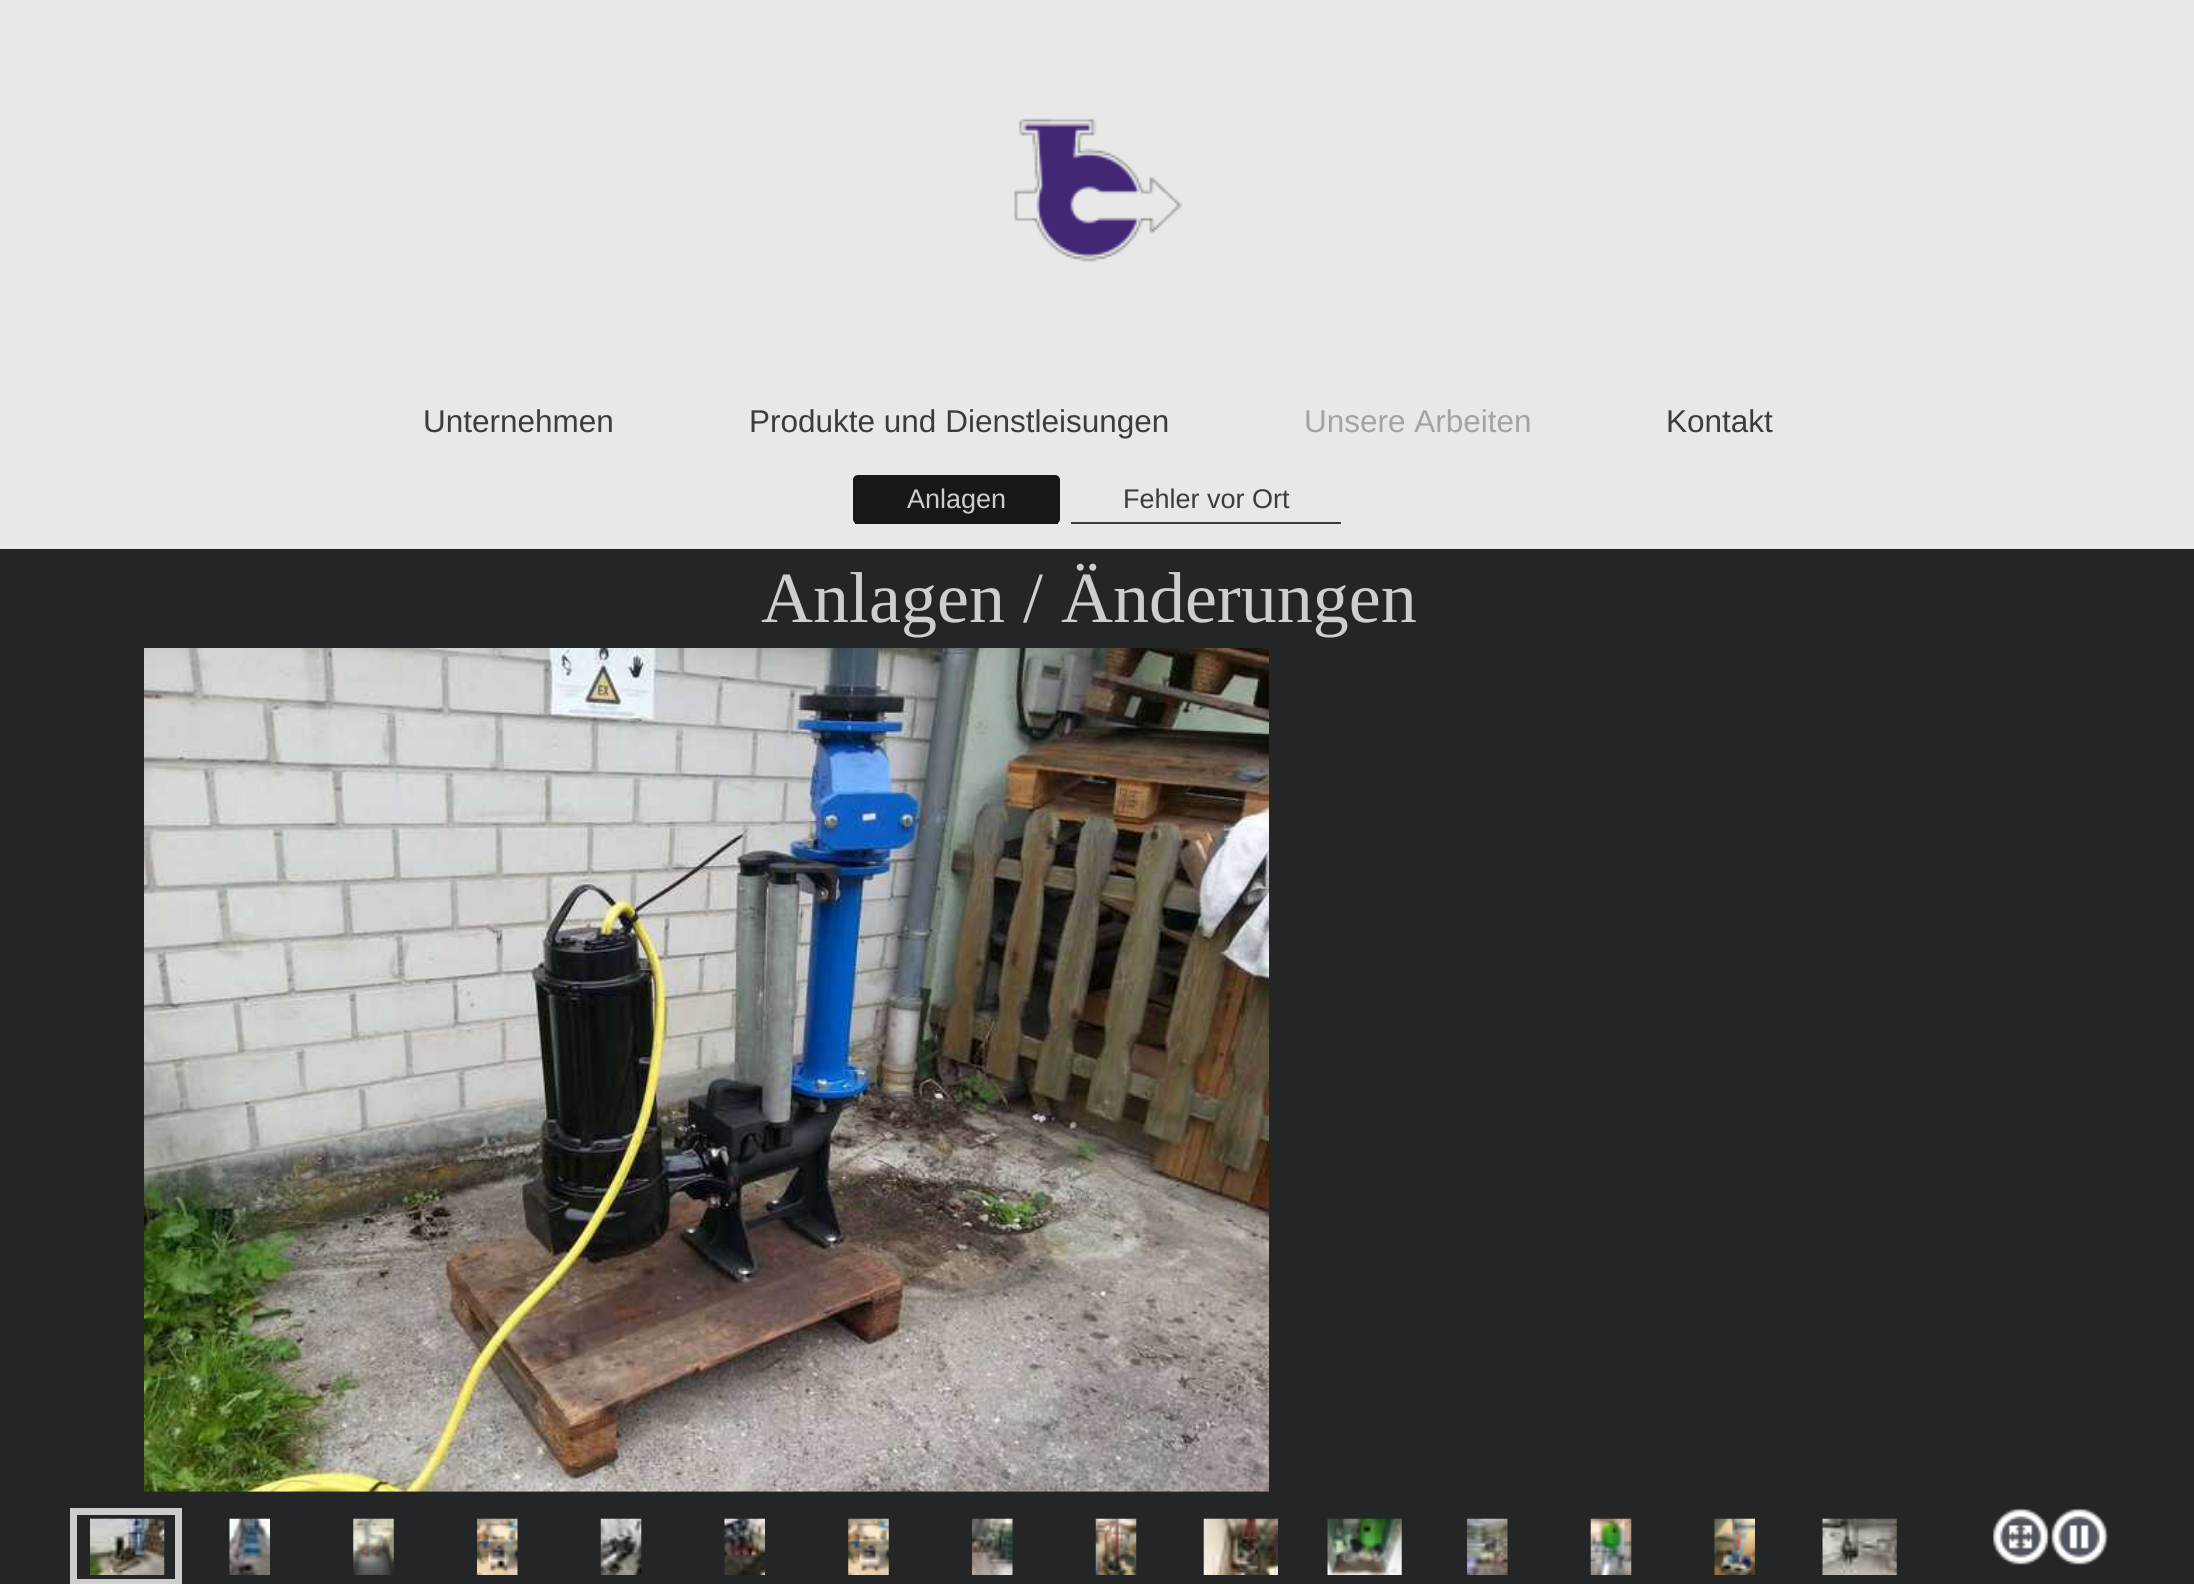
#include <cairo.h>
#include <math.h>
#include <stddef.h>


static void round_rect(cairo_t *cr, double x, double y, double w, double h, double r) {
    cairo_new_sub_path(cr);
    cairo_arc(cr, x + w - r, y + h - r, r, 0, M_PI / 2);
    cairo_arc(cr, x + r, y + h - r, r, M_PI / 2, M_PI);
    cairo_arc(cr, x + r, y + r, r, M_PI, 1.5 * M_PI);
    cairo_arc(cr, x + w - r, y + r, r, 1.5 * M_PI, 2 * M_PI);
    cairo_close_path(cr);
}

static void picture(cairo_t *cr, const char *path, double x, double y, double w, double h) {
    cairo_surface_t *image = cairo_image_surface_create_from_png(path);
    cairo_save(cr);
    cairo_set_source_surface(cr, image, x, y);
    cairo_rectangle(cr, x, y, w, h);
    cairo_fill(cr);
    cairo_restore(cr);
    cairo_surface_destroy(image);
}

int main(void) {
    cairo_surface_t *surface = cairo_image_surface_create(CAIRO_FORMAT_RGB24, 2194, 1584);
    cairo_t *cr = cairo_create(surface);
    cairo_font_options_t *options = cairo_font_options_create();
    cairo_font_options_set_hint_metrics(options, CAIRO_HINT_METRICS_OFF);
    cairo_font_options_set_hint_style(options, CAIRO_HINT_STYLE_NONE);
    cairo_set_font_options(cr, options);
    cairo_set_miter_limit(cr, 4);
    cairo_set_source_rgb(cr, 0.91, 0.91, 0.91);
    cairo_paint(cr);
    picture(cr, "img1.png", 1014, 118, 168, 144);
    cairo_select_font_face(cr, "Liberation Sans", CAIRO_FONT_SLANT_NORMAL, CAIRO_FONT_WEIGHT_NORMAL);
    cairo_set_font_size(cr, 31.5);
    cairo_set_source_rgb(cr, 0.235, 0.235, 0.235);
    cairo_move_to(cr, 423, 432);
    cairo_show_text(cr, "Unternehmen");
    cairo_move_to(cr, 749, 432);
    cairo_show_text(cr, "Produkte und Dienstleisungen");
    cairo_set_source_rgb(cr, 0.639, 0.639, 0.639);
    cairo_move_to(cr, 1304, 432);
    cairo_show_text(cr, "Unsere Arbeiten");
    cairo_set_source_rgb(cr, 0.235, 0.235, 0.235);
    cairo_move_to(cr, 1666, 432);
    cairo_show_text(cr, "Kontakt");
    cairo_set_source_rgb(cr, 0.09, 0.09, 0.09);
    round_rect(cr, 853, 475, 207, 49, 5);
    cairo_fill(cr);
    cairo_rectangle(cr, 855, 523, 203, 1);
    cairo_fill(cr);
    cairo_set_font_size(cr, 27);
    cairo_set_source_rgb(cr, 0.804, 0.808, 0.816);
    cairo_move_to(cr, 907, 508);
    cairo_show_text(cr, "Anlagen");
    cairo_set_source_rgb(cr, 0.235, 0.235, 0.235);
    cairo_rectangle(cr, 1071, 522, 270, 2);
    cairo_fill(cr);
    cairo_move_to(cr, 1123, 508);
    cairo_show_text(cr, "Fehler vor Ort");
    cairo_set_source_rgb(cr, 0.137, 0.145, 0.153);
    cairo_rectangle(cr, 0, 549, 2194, 1035);
    cairo_fill(cr);
    cairo_select_font_face(cr, "Liberation Serif", CAIRO_FONT_SLANT_NORMAL, CAIRO_FONT_WEIGHT_NORMAL);
    cairo_set_font_size(cr, 72);
    cairo_set_source_rgb(cr, 0.804, 0.808, 0.816);
    cairo_move_to(cr, 761, 622);
    cairo_show_text(cr, "Anlagen / Änderungen");
    picture(cr, "img2.png", 144, 648, 1125, 844);
    cairo_rectangle(cr, 73.5, 1511.5, 105, 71);
    cairo_set_source_rgb(cr, 0.8, 0.8, 0.8);
    cairo_set_line_width(cr, 7);
    cairo_stroke(cr);
    picture(cr, "img3.png", 90, 1518, 75, 57);
    picture(cr, "img4.png", 229, 1518, 41, 57);
    picture(cr, "img5.png", 353, 1518, 41, 57);
    picture(cr, "img6.png", 477, 1518, 41, 57);
    picture(cr, "img7.png", 600, 1518, 42, 57);
    picture(cr, "img8.png", 724, 1518, 41, 57);
    picture(cr, "img9.png", 848, 1518, 41, 57);
    picture(cr, "img10.png", 972, 1518, 41, 57);
    picture(cr, "img11.png", 1095, 1518, 42, 57);
    picture(cr, "img12.png", 1203, 1518, 75, 57);
    picture(cr, "img13.png", 1327, 1518, 75, 57);
    picture(cr, "img14.png", 1467, 1518, 41, 57);
    picture(cr, "img15.png", 1590, 1518, 42, 57);
    picture(cr, "img16.png", 1714, 1518, 41, 57);
    picture(cr, "img17.png", 1822, 1518, 75, 57);
    picture(cr, "img18.png", 1993, 1507, 57, 58);
    picture(cr, "img19.png", 2051, 1507, 58, 58);
    cairo_surface_write_to_png(surface, "page.png");
    cairo_font_options_destroy(options);
    cairo_destroy(cr);
    cairo_surface_destroy(surface);
    return 0;
}
